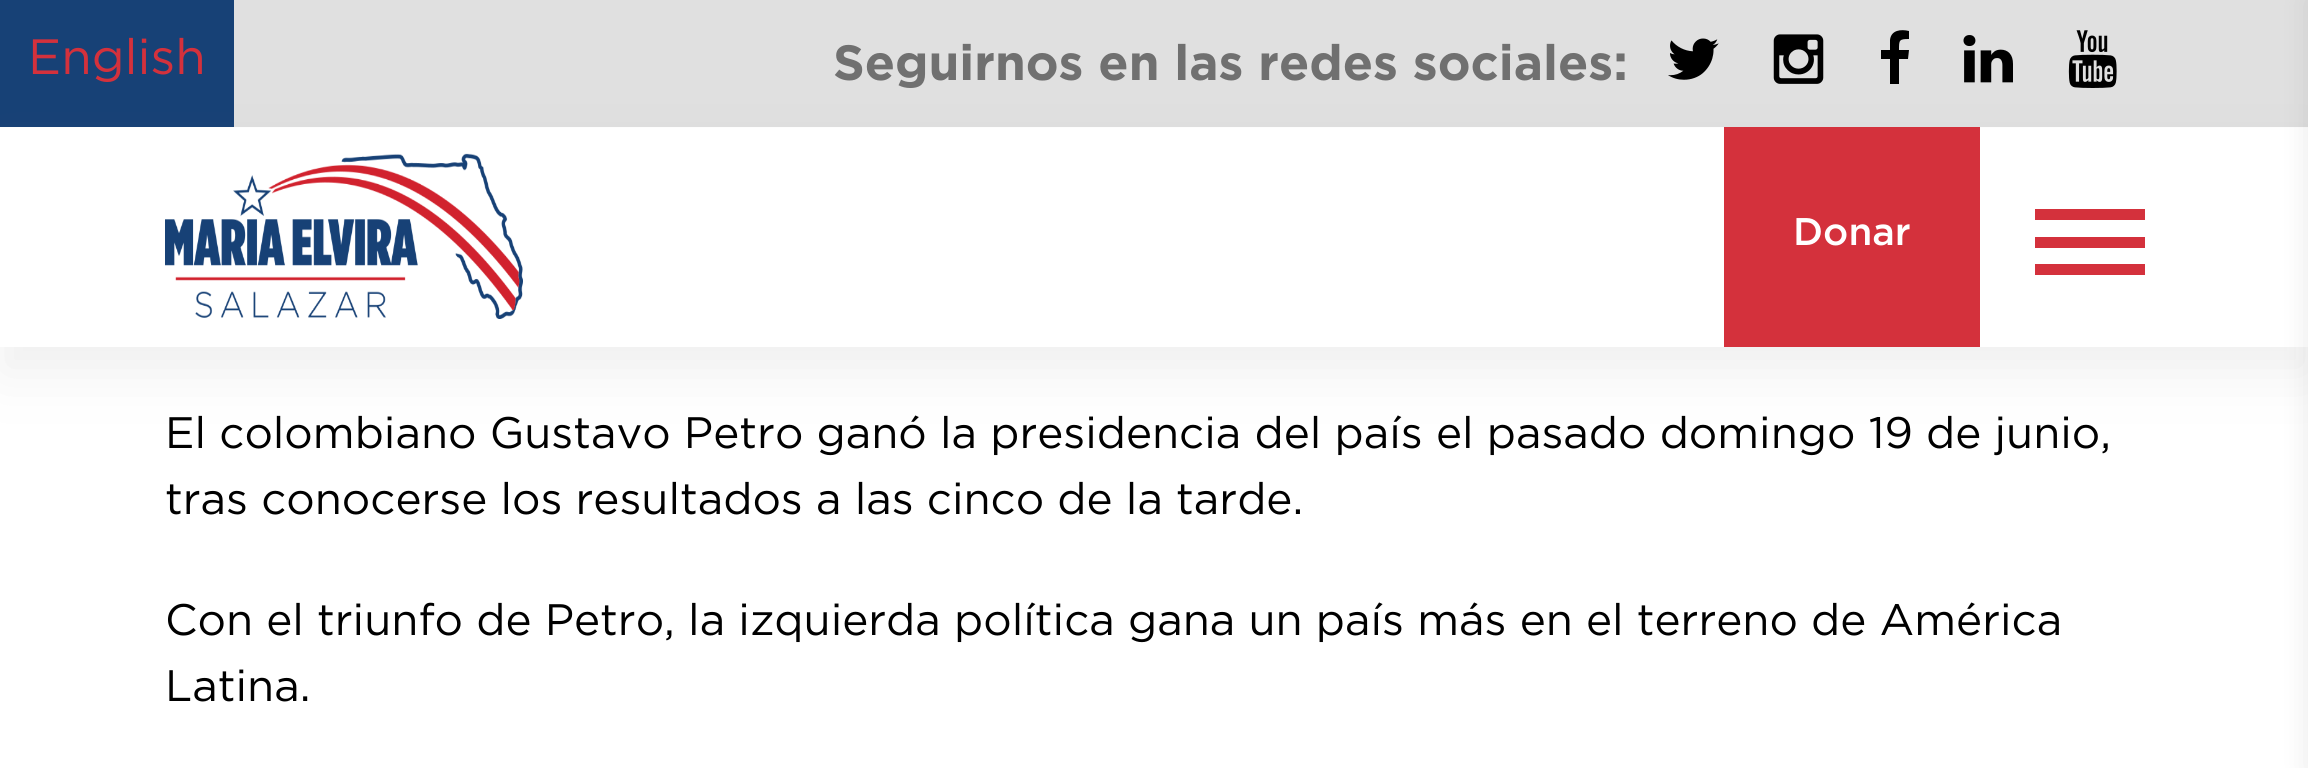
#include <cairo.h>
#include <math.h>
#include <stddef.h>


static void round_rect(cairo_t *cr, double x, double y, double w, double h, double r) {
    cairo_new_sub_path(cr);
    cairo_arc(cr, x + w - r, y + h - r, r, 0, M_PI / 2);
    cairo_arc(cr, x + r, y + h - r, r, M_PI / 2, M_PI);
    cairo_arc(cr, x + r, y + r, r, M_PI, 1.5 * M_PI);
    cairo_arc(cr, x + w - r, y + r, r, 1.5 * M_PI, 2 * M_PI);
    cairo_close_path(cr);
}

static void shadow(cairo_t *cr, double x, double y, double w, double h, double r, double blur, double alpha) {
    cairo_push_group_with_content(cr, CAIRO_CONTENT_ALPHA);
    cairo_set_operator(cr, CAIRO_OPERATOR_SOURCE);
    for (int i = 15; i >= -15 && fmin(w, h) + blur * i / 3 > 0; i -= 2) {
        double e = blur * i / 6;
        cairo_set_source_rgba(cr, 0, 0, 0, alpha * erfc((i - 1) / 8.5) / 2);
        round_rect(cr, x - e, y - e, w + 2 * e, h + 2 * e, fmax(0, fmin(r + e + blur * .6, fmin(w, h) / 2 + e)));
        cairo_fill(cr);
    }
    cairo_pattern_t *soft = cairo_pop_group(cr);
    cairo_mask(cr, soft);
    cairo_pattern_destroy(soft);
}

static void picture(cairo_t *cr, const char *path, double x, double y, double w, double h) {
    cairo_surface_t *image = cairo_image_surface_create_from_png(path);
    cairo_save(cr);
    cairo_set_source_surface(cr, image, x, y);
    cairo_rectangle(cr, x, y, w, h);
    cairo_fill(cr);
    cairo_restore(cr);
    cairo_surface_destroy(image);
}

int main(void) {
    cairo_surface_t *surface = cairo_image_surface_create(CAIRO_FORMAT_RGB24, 2308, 768);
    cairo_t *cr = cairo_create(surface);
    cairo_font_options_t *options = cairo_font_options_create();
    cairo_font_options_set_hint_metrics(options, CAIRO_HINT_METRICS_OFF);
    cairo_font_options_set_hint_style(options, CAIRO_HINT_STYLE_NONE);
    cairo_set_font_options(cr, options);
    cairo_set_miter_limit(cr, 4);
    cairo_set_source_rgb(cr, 1, 1, 1);
    cairo_paint(cr);
    cairo_set_source_rgb(cr, 0.878, 0.878, 0.878);
    cairo_rectangle(cr, 234, 0, 2074, 127);
    cairo_fill(cr);
    cairo_set_source_rgb(cr, 0.09, 0.255, 0.463);
    cairo_rectangle(cr, 0, 0, 234, 127);
    cairo_fill(cr);
    cairo_select_font_face(cr, "Gotham", CAIRO_FONT_SLANT_NORMAL, CAIRO_FONT_WEIGHT_NORMAL);
    cairo_set_font_size(cr, 49.5);
    cairo_set_source_rgb(cr, 0.831, 0.192, 0.235);
    cairo_move_to(cr, 28, 74);
    cairo_show_text(cr, "English");
    cairo_select_font_face(cr, "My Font", CAIRO_FONT_SLANT_NORMAL, CAIRO_FONT_WEIGHT_BOLD);
    cairo_set_source_rgb(cr, 0.439, 0.439, 0.439);
    cairo_move_to(cr, 833, 80);
    cairo_show_text(cr, "Seguirnos en las redes sociales:");
    picture(cr, "img1.png", 1668, 38, 51, 42);
    picture(cr, "img2.png", 1773, 34, 51, 50);
    cairo_set_source_rgb(cr, 0, 0, 0);
    cairo_new_path(cr);
    cairo_move_to(cr, 1909, 31);
    cairo_line_to(cr, 1909, 39);
    cairo_curve_to(cr, 1899, 39, 1899, 40, 1899, 50);
    cairo_line_to(cr, 1909, 50);
    cairo_line_to(cr, 1908, 59);
    cairo_line_to(cr, 1899, 59);
    cairo_line_to(cr, 1899, 84);
    cairo_line_to(cr, 1890, 84);
    cairo_line_to(cr, 1890, 59);
    cairo_line_to(cr, 1881, 59);
    cairo_line_to(cr, 1881, 50);
    cairo_line_to(cr, 1890, 50);
    cairo_line_to(cr, 1890, 40);
    cairo_curve_to(cr, 1891, 30, 1901, 29, 1909, 31);
    cairo_close_path(cr);
    cairo_fill(cr);
    picture(cr, "img3.png", 1963, 35, 50, 48);
    picture(cr, "img4.png", 2068, 30, 49, 58);
    cairo_set_source_rgb(cr, 0.392, 0.392, 0.392);
    shadow(cr, 0, 154, 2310, 220, 0, 27.5, 0.1);
    cairo_set_source_rgb(cr, 1, 1, 1);
    cairo_rectangle(cr, 0, 128, 2308, 219);
    cairo_fill(cr);
    picture(cr, "img5.png", 165, 153, 358, 166);
    cairo_set_source_rgb(cr, 0.831, 0.192, 0.235);
    cairo_rectangle(cr, 1724, 127, 256, 220);
    cairo_fill(cr);
    cairo_select_font_face(cr, "Gotham Medium", CAIRO_FONT_SLANT_NORMAL, CAIRO_FONT_WEIGHT_NORMAL);
    cairo_set_font_size(cr, 38.5);
    cairo_set_source_rgb(cr, 1, 1, 1);
    cairo_move_to(cr, 1793, 245);
    cairo_show_text(cr, "Donar");
    cairo_set_source_rgb(cr, 0.831, 0.192, 0.235);
    cairo_rectangle(cr, 2035, 209, 110, 11);
    cairo_fill(cr);
    cairo_rectangle(cr, 2035, 237, 110, 11);
    cairo_fill(cr);
    cairo_rectangle(cr, 2035, 264, 110, 11);
    cairo_fill(cr);
    cairo_set_source_rgb(cr, 0, 0, 0);
    shadow(cr, 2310, 0, 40, 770, 0, 14, 0.1);
    cairo_select_font_face(cr, "Gotham", CAIRO_FONT_SLANT_NORMAL, CAIRO_FONT_WEIGHT_NORMAL);
    cairo_set_font_size(cr, 44);
    cairo_set_source_rgb(cr, 0, 0, 0);
    cairo_move_to(cr, 165, 448);
    cairo_show_text(cr, "El colombiano Gustavo Petro ganó la presidencia del país el pasado domingo 19 de junio,");
    cairo_move_to(cr, 165, 514);
    cairo_show_text(cr, "tras conocerse los resultados a las cinco de la tarde.");
    cairo_move_to(cr, 165, 635);
    cairo_show_text(cr, "Con el triunfo de Petro, la izquierda política gana un país más en el terreno de América");
    cairo_move_to(cr, 165, 701);
    cairo_show_text(cr, "Latina.");
    cairo_surface_write_to_png(surface, "page.png");
    cairo_font_options_destroy(options);
    cairo_destroy(cr);
    cairo_surface_destroy(surface);
    return 0;
}
